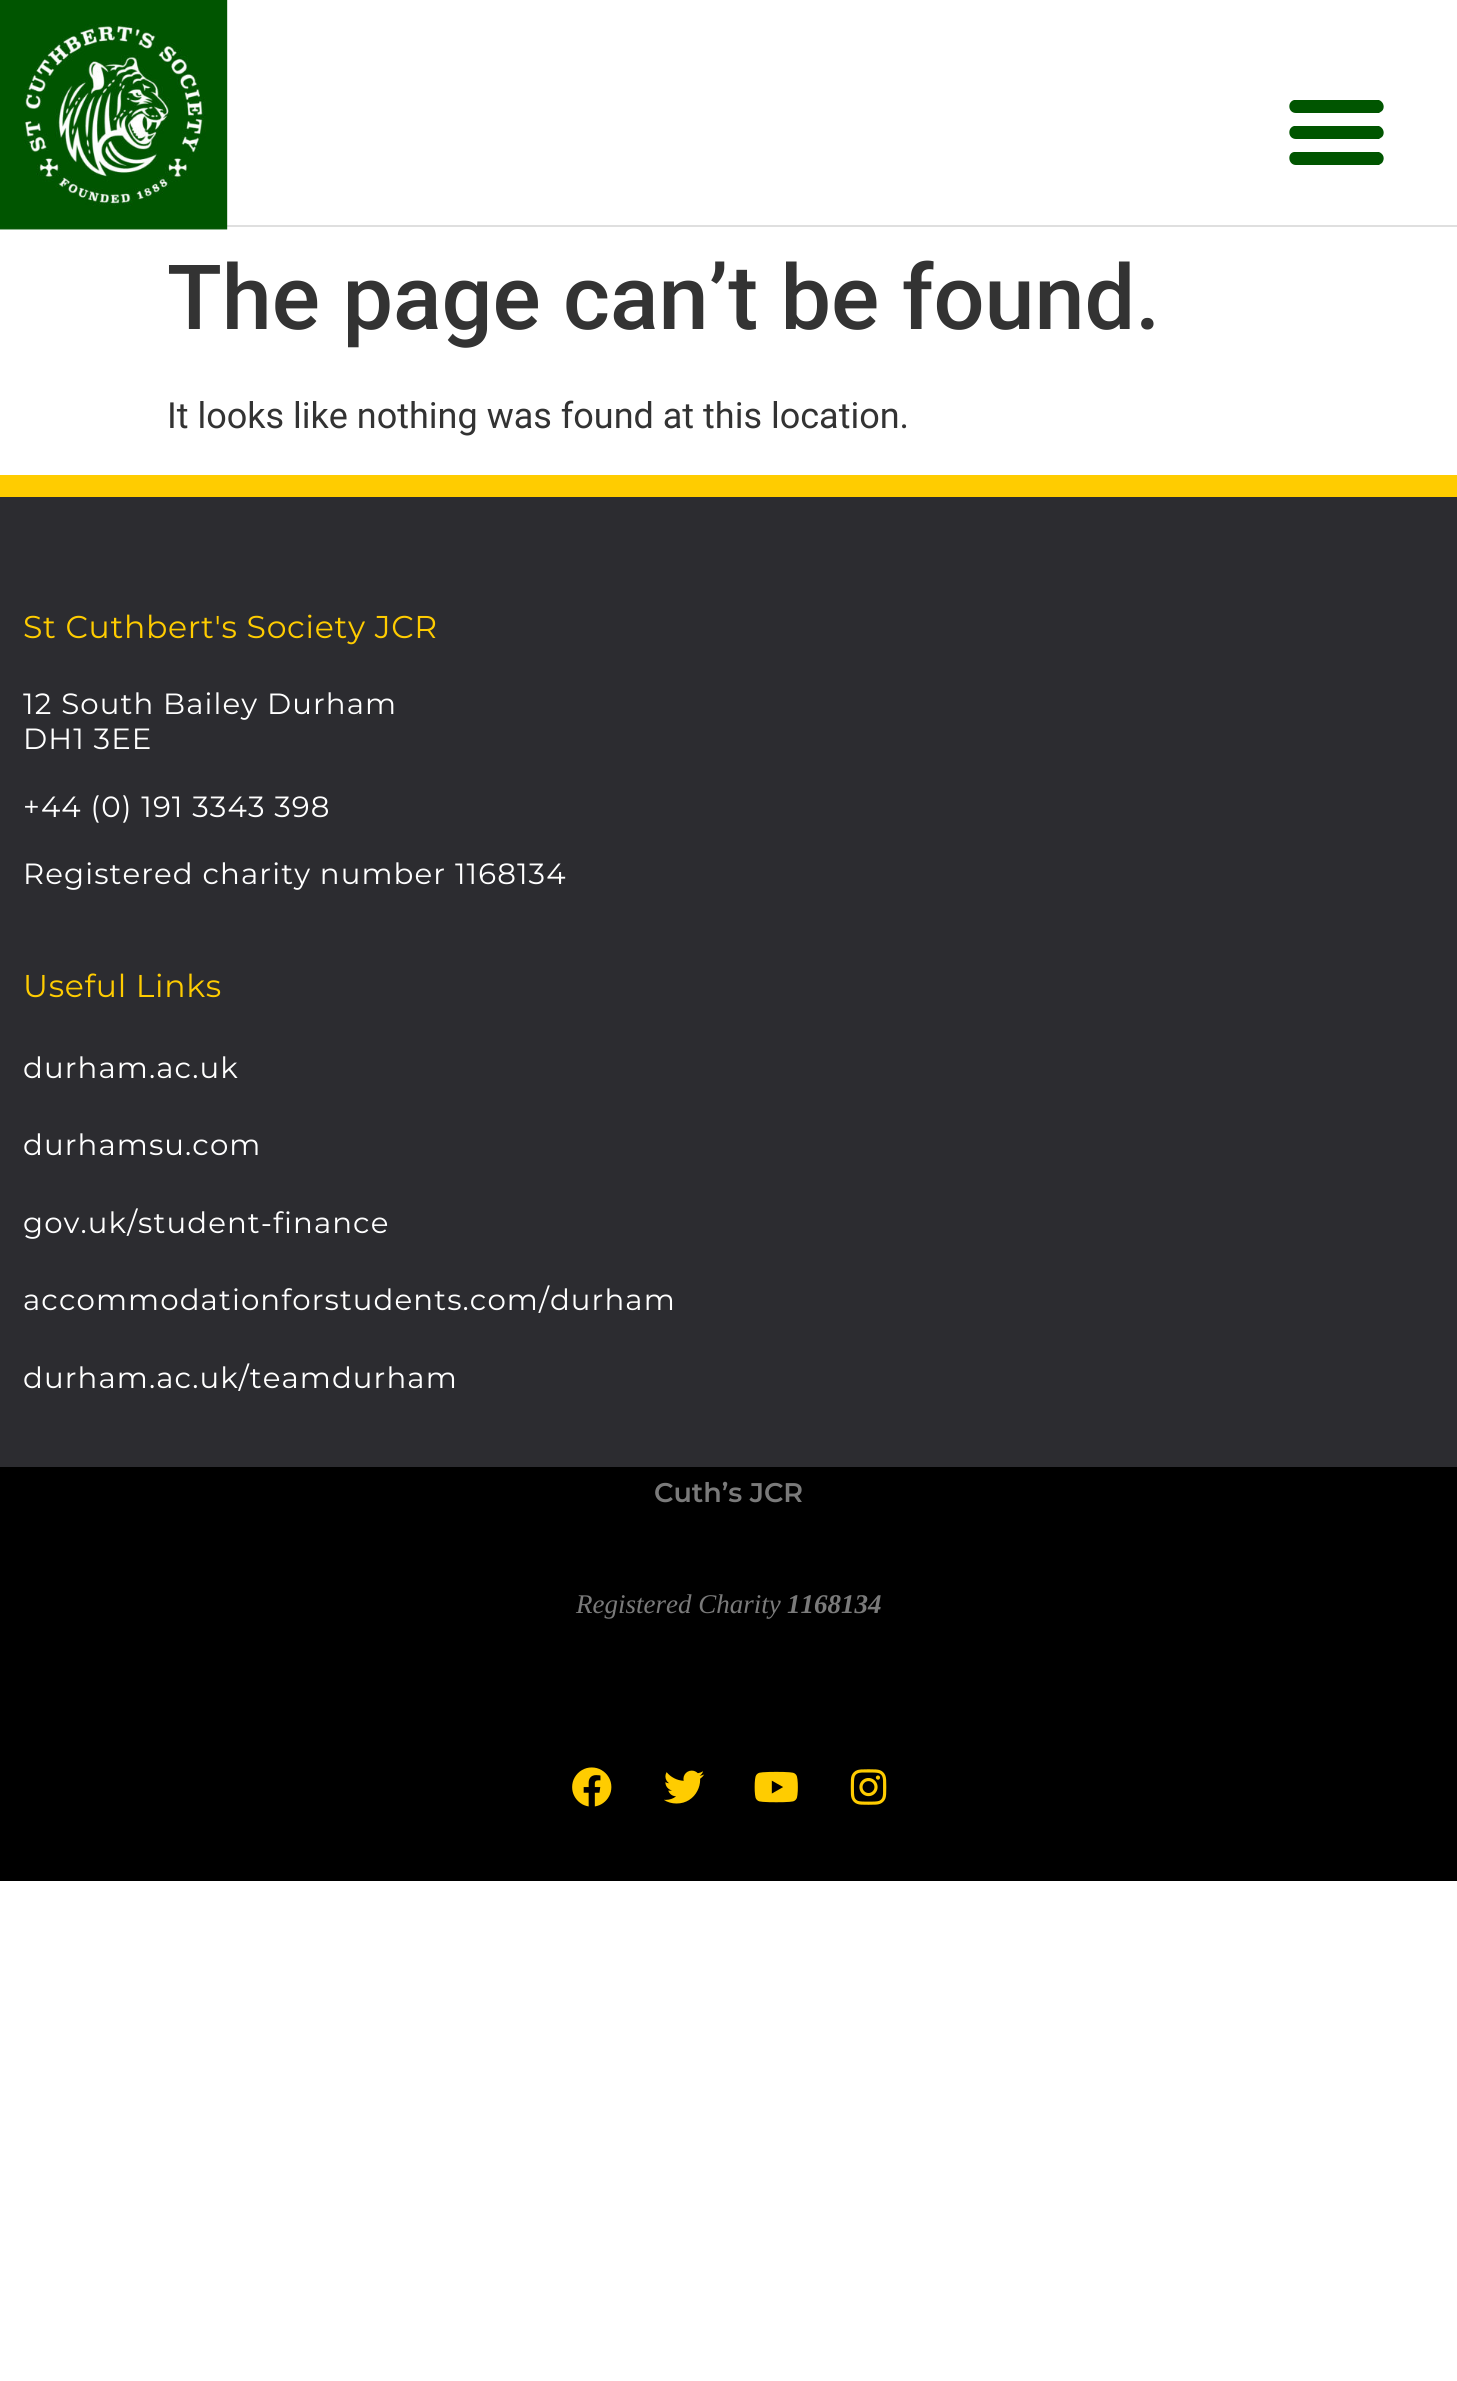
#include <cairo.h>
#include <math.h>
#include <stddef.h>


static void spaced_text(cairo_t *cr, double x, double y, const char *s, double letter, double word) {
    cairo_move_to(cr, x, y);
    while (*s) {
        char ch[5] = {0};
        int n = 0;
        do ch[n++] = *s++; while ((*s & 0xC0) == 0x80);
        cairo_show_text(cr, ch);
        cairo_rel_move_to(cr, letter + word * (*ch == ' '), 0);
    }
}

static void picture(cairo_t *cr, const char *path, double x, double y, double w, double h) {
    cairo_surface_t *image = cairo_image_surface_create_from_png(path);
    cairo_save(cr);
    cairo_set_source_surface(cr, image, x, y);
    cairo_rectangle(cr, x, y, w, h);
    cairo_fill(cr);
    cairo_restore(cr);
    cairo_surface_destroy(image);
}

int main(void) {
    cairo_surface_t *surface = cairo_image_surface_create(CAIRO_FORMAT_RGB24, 1457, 2381);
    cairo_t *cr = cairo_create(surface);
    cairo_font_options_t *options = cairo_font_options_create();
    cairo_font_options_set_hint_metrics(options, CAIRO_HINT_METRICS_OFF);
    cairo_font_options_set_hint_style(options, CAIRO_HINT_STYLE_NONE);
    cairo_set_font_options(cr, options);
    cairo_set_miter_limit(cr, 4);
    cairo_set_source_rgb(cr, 1, 1, 1);
    cairo_paint(cr);
    cairo_set_source_rgb(cr, 0.875, 0.875, 0.875);
    cairo_rectangle(cr, 227, 225, 1230, 2);
    cairo_fill(cr);
    picture(cr, "img1.png", 0, 0, 228, 230);
    cairo_set_source_rgb(cr, 0, 0.333, 0);
    cairo_new_path(cr);
    cairo_move_to(cr, 1296, 113);
    cairo_line_to(cr, 1379, 113);
    cairo_line_to(cr, 1382, 111);
    cairo_curve_to(cr, 1385, 108, 1384, 102, 1379, 100);
    cairo_line_to(cr, 1294, 100);
    cairo_curve_to(cr, 1287, 102, 1288, 113, 1296, 113);
    cairo_close_path(cr);
    cairo_move_to(cr, 1296, 139);
    cairo_line_to(cr, 1379, 139);
    cairo_line_to(cr, 1382, 137);
    cairo_curve_to(cr, 1385, 134, 1384, 128, 1379, 126);
    cairo_line_to(cr, 1294, 126);
    cairo_curve_to(cr, 1287, 128, 1288, 139, 1296, 139);
    cairo_close_path(cr);
    cairo_move_to(cr, 1296, 165);
    cairo_line_to(cr, 1379, 165);
    cairo_line_to(cr, 1382, 163);
    cairo_curve_to(cr, 1385, 159, 1384, 154, 1379, 152);
    cairo_line_to(cr, 1294, 152);
    cairo_curve_to(cr, 1287, 153, 1288, 165, 1296, 165);
    cairo_close_path(cr);
    cairo_fill(cr);
    cairo_select_font_face(cr, "Roboto Medium", CAIRO_FONT_SLANT_NORMAL, CAIRO_FONT_WEIGHT_NORMAL);
    cairo_set_font_size(cr, 90);
    cairo_set_source_rgb(cr, 0.2, 0.2, 0.2);
    cairo_move_to(cr, 167, 329);
    cairo_show_text(cr, "The page can’t be found.");
    cairo_select_font_face(cr, "Roboto", CAIRO_FONT_SLANT_NORMAL, CAIRO_FONT_WEIGHT_NORMAL);
    cairo_set_font_size(cr, 36);
    cairo_move_to(cr, 167, 428);
    cairo_show_text(cr, "It looks like nothing was found at this location.");
    cairo_set_source_rgb(cr, 1, 0.8, 0);
    cairo_rectangle(cr, 0, 475, 1457, 22);
    cairo_fill(cr);
    cairo_set_source_rgb(cr, 0.173, 0.173, 0.188);
    cairo_rectangle(cr, 0, 497, 1457, 970);
    cairo_fill(cr);
    cairo_select_font_face(cr, "Montserrat", CAIRO_FONT_SLANT_NORMAL, CAIRO_FONT_WEIGHT_NORMAL);
    cairo_set_font_size(cr, 31.5);
    cairo_set_source_rgb(cr, 1, 0.8, 0);
    spaced_text(cr, 23, 638, "St Cuthbert's Society JCR", 0.7, 0);
    cairo_set_font_size(cr, 29.25);
    cairo_set_source_rgb(cr, 1, 1, 1);
    spaced_text(cr, 23, 714, "12 South Bailey Durham", 1.1, 0);
    spaced_text(cr, 23, 749, "DH1 3EE", 1.1, 0);
    spaced_text(cr, 23, 817, "+44 (0) 191 3343 398", 1.1, 0);
    spaced_text(cr, 23, 884, "Registered charity number 1168134", 1.1, 0);
    cairo_set_font_size(cr, 31.5);
    cairo_set_source_rgb(cr, 1, 0.8, 0);
    spaced_text(cr, 23, 997, "Useful Links", 0.7, 0);
    cairo_set_font_size(cr, 29.25);
    cairo_set_source_rgb(cr, 1, 1, 1);
    spaced_text(cr, 23, 1078, "durham.ac.uk", 1.1, 0);
    spaced_text(cr, 23, 1155, "durhamsu.com", 1.1, 0);
    spaced_text(cr, 23, 1233, "gov.uk/student-finance", 1.1, 0);
    spaced_text(cr, 23, 1310, "accommodationforstudents.com/durham", 1.1, 0);
    spaced_text(cr, 23, 1388, "durham.ac.uk/teamdurham", 1.1, 0);
    cairo_set_source_rgb(cr, 0, 0, 0);
    cairo_rectangle(cr, 0, 1467, 1457, 414);
    cairo_fill(cr);
    cairo_select_font_face(cr, "Montserrat SemiBold", CAIRO_FONT_SLANT_NORMAL, CAIRO_FONT_WEIGHT_NORMAL);
    cairo_set_font_size(cr, 27);
    cairo_set_source_rgb(cr, 0.478, 0.478, 0.478);
    cairo_move_to(cr, 654, 1502);
    cairo_show_text(cr, "Cuth’s JCR");
    cairo_select_font_face(cr, "Liberation Serif", CAIRO_FONT_SLANT_ITALIC, CAIRO_FONT_WEIGHT_NORMAL);
    cairo_move_to(cr, 576, 1613);
    cairo_show_text(cr, "Registered Charity");
    cairo_select_font_face(cr, "Liberation Serif", CAIRO_FONT_SLANT_ITALIC, CAIRO_FONT_WEIGHT_BOLD);
    cairo_move_to(cr, 787, 1613);
    cairo_show_text(cr, "1168134");
    picture(cr, "img2.png", 572, 1767, 40, 40);
    picture(cr, "img3.png", 664, 1770, 41, 34);
    picture(cr, "img4.png", 754, 1771, 44, 32);
    picture(cr, "img5.png", 850, 1769, 37, 36);
    cairo_surface_write_to_png(surface, "page.png");
    cairo_font_options_destroy(options);
    cairo_destroy(cr);
    cairo_surface_destroy(surface);
    return 0;
}
